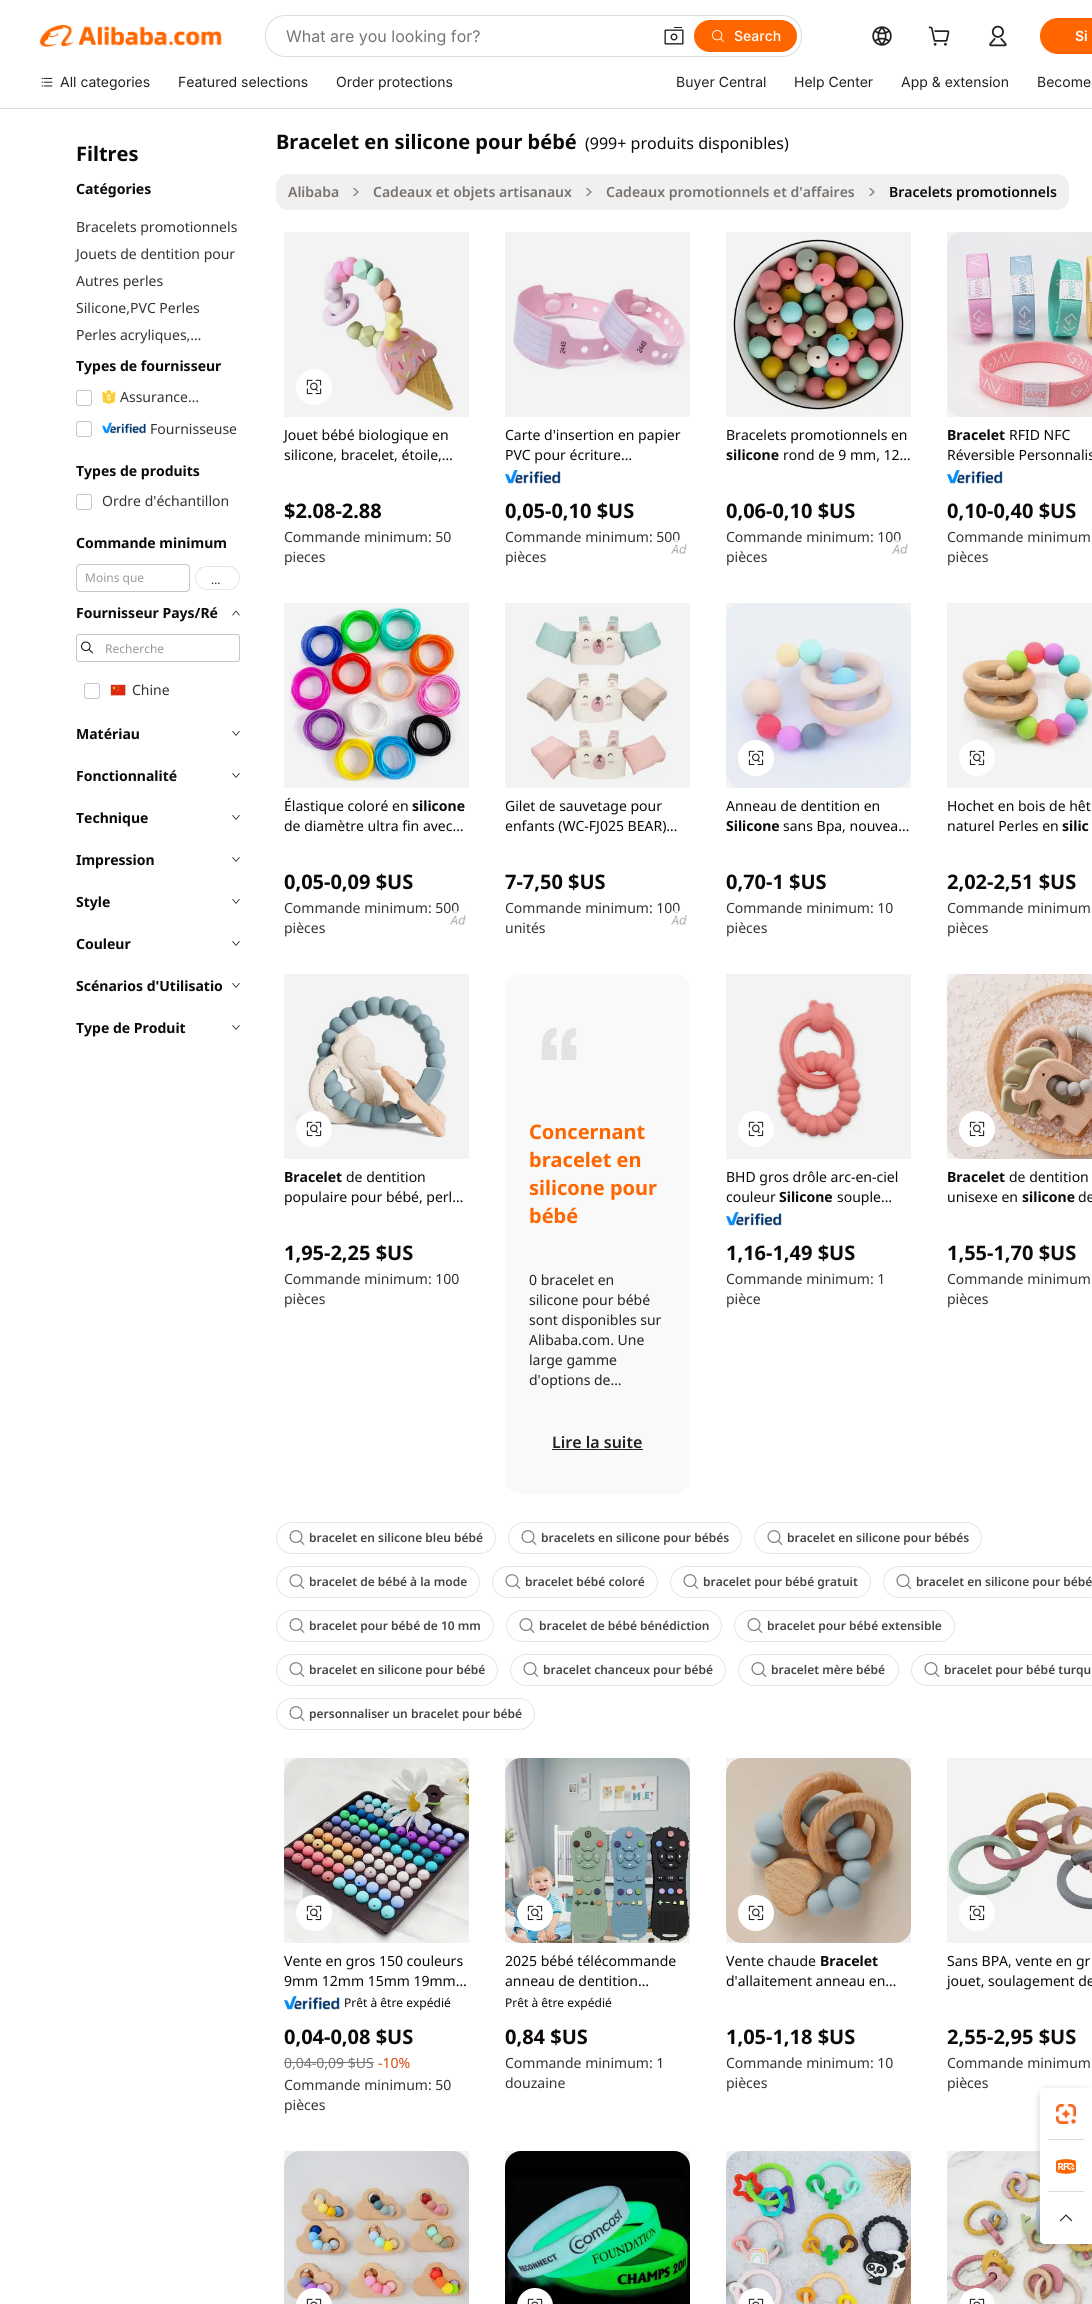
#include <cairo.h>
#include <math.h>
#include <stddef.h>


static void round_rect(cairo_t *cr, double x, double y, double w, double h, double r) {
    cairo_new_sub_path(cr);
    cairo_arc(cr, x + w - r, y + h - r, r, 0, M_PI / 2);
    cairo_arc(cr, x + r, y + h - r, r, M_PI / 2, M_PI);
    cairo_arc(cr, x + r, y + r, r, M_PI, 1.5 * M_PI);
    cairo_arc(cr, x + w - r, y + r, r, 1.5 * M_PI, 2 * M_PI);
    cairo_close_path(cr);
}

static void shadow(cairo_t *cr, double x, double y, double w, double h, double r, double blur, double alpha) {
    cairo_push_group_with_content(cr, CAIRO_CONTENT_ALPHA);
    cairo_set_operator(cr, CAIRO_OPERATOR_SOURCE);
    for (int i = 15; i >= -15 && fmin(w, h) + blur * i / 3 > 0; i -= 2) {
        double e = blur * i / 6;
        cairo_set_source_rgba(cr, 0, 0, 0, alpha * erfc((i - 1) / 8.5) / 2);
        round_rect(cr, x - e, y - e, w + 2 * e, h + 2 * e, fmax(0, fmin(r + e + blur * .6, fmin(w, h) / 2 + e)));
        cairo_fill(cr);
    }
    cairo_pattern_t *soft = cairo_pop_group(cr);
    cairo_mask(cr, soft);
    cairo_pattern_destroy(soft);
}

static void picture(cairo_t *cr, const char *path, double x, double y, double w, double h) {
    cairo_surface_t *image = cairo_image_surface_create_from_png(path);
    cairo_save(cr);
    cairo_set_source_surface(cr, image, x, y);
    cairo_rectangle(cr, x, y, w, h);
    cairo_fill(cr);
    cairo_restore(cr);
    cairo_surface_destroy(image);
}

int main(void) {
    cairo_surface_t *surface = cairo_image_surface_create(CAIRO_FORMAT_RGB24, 1092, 2304);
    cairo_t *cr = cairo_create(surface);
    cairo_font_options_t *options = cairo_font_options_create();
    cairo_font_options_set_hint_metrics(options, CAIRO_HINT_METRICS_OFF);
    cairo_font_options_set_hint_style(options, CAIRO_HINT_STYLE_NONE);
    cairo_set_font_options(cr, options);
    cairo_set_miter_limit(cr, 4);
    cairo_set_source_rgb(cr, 1, 1, 1);
    cairo_paint(cr);
    cairo_set_source_rgb(cr, 0.867, 0.867, 0.867);
    cairo_rectangle(cr, 0, 108, 1092, 1);
    cairo_fill(cr);
    picture(cr, "img1.png", 40, 25, 182, 22);
    round_rect(cr, 265, 15, 537, 42, 20);
    cairo_fill(cr);
    cairo_set_source_rgb(cr, 1, 1, 1);
    round_rect(cr, 266, 16, 535, 40, 19);
    cairo_fill(cr);
    cairo_select_font_face(cr, "Inter", CAIRO_FONT_SLANT_NORMAL, CAIRO_FONT_WEIGHT_NORMAL);
    cairo_set_font_size(cr, 16);
    cairo_set_source_rgb(cr, 0.463, 0.463, 0.463);
    cairo_move_to(cr, 286, 42);
    cairo_show_text(cr, "What are you looking for?");
    picture(cr, "img2.png", 664, 27, 20, 18);
    cairo_set_source_rgb(cr, 1, 0.4, 0);
    round_rect(cr, 694, 20, 103, 32, 16);
    cairo_fill(cr);
    picture(cr, "img3.png", 712, 30, 12, 12);
    cairo_select_font_face(cr, "Inter Medium", CAIRO_FONT_SLANT_NORMAL, CAIRO_FONT_WEIGHT_NORMAL);
    cairo_set_font_size(cr, 14);
    cairo_set_source_rgb(cr, 1, 1, 1);
    cairo_move_to(cr, 734, 41);
    cairo_show_text(cr, "Search");
    picture(cr, "img4.png", 872, 26, 20, 20);
    picture(cr, "img5.png", 928, 26, 22, 20);
    picture(cr, "img6.png", 989, 25, 18, 22);
    cairo_set_source_rgb(cr, 1, 0.4, 0);
    round_rect(cr, 1040, 18, 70, 36, 18);
    cairo_fill(cr);
    cairo_select_font_face(cr, "Inter SemiBold", CAIRO_FONT_SLANT_NORMAL, CAIRO_FONT_WEIGHT_NORMAL);
    cairo_set_source_rgb(cr, 1, 1, 1);
    cairo_move_to(cr, 1075, 41);
    cairo_show_text(cr, "Si");
    picture(cr, "img7.png", 41, 77, 12, 10);
    cairo_select_font_face(cr, "Inter", CAIRO_FONT_SLANT_NORMAL, CAIRO_FONT_WEIGHT_NORMAL);
    cairo_set_source_rgb(cr, 0.133, 0.133, 0.133);
    cairo_move_to(cr, 60, 87);
    cairo_show_text(cr, "All categories");
    cairo_move_to(cr, 178, 87);
    cairo_show_text(cr, "Featured selections");
    cairo_move_to(cr, 336, 87);
    cairo_show_text(cr, "Order protections");
    cairo_move_to(cr, 676, 87);
    cairo_show_text(cr, "Buyer Central");
    cairo_move_to(cr, 794, 87);
    cairo_show_text(cr, "Help Center");
    cairo_move_to(cr, 901, 87);
    cairo_show_text(cr, "App & extension");
    cairo_move_to(cr, 1037, 87);
    cairo_show_text(cr, "Become");
    cairo_select_font_face(cr, "Noto Sans", CAIRO_FONT_SLANT_NORMAL, CAIRO_FONT_WEIGHT_BOLD);
    cairo_set_font_size(cr, 20);
    cairo_set_source_rgb(cr, 0.047, 0.039, 0.035);
    cairo_move_to(cr, 76, 161);
    cairo_show_text(cr, "Filtres");
    cairo_set_font_size(cr, 14);
    cairo_move_to(cr, 76, 194);
    cairo_show_text(cr, "Catégories");
    cairo_select_font_face(cr, "Noto Sans", CAIRO_FONT_SLANT_NORMAL, CAIRO_FONT_WEIGHT_NORMAL);
    cairo_set_source_rgb(cr, 0.2, 0.2, 0.2);
    cairo_move_to(cr, 76, 232);
    cairo_show_text(cr, "Bracelets promotionnels");
    cairo_move_to(cr, 76, 259);
    cairo_show_text(cr, "Jouets de dentition pour");
    cairo_move_to(cr, 76, 286);
    cairo_show_text(cr, "Autres perles");
    cairo_move_to(cr, 76, 313);
    cairo_show_text(cr, "Silicone,PVC Perles");
    cairo_move_to(cr, 76, 340);
    cairo_show_text(cr, "Perles acryliques,…");
    cairo_select_font_face(cr, "Noto Sans", CAIRO_FONT_SLANT_NORMAL, CAIRO_FONT_WEIGHT_BOLD);
    cairo_set_source_rgb(cr, 0.047, 0.039, 0.035);
    cairo_move_to(cr, 76, 371);
    cairo_show_text(cr, "Types de fournisseur");
    round_rect(cr, 76.5, 390.5, 15, 15, 2.5);
    cairo_set_source_rgb(cr, 0.769, 0.776, 0.812);
    cairo_set_line_width(cr, 1);
    cairo_stroke(cr);
    picture(cr, "img8.png", 102, 390, 14, 14);
    cairo_select_font_face(cr, "Noto Sans", CAIRO_FONT_SLANT_NORMAL, CAIRO_FONT_WEIGHT_NORMAL);
    cairo_set_source_rgb(cr, 0.2, 0.2, 0.2);
    cairo_move_to(cr, 120, 402);
    cairo_show_text(cr, "Assurance…");
    round_rect(cr, 76.5, 421.5, 15, 15, 2.5);
    cairo_set_source_rgb(cr, 0.769, 0.776, 0.812);
    cairo_stroke(cr);
    picture(cr, "img9.png", 102, 422, 44, 12);
    cairo_set_source_rgb(cr, 0.2, 0.2, 0.2);
    cairo_move_to(cr, 150, 434);
    cairo_show_text(cr, "Fournisseuse");
    cairo_select_font_face(cr, "Noto Sans", CAIRO_FONT_SLANT_NORMAL, CAIRO_FONT_WEIGHT_BOLD);
    cairo_set_source_rgb(cr, 0.047, 0.039, 0.035);
    cairo_move_to(cr, 76, 476);
    cairo_show_text(cr, "Types de produits");
    round_rect(cr, 76.5, 494.5, 15, 15, 2.5);
    cairo_set_source_rgb(cr, 0.769, 0.776, 0.812);
    cairo_stroke(cr);
    cairo_select_font_face(cr, "Noto Sans", CAIRO_FONT_SLANT_NORMAL, CAIRO_FONT_WEIGHT_NORMAL);
    cairo_set_source_rgb(cr, 0.2, 0.2, 0.2);
    cairo_move_to(cr, 102, 506);
    cairo_show_text(cr, "Ordre d'échantillon");
    cairo_select_font_face(cr, "Noto Sans", CAIRO_FONT_SLANT_NORMAL, CAIRO_FONT_WEIGHT_BOLD);
    cairo_set_source_rgb(cr, 0.047, 0.039, 0.035);
    cairo_move_to(cr, 76, 548);
    cairo_show_text(cr, "Commande minimum");
    round_rect(cr, 76.5, 564.5, 113, 27, 3.5);
    cairo_set_source_rgb(cr, 0.769, 0.776, 0.812);
    cairo_stroke(cr);
    cairo_select_font_face(cr, "Noto Sans", CAIRO_FONT_SLANT_NORMAL, CAIRO_FONT_WEIGHT_NORMAL);
    cairo_set_font_size(cr, 12);
    cairo_set_source_rgb(cr, 0.6, 0.6, 0.6);
    cairo_move_to(cr, 85, 582);
    cairo_show_text(cr, "Moins que");
    round_rect(cr, 195.5, 566.5, 44, 23, 11.5);
    cairo_set_source_rgb(cr, 0.906, 0.898, 0.894);
    cairo_stroke(cr);
    cairo_set_source_rgb(cr, 0.2, 0.2, 0.2);
    cairo_move_to(cr, 211, 584);
    cairo_show_text(cr, "…");
    cairo_select_font_face(cr, "Noto Sans", CAIRO_FONT_SLANT_NORMAL, CAIRO_FONT_WEIGHT_BOLD);
    cairo_set_font_size(cr, 14);
    cairo_set_source_rgb(cr, 0.047, 0.039, 0.035);
    cairo_move_to(cr, 76, 618);
    cairo_show_text(cr, "Fournisseur Pays/Ré");
    picture(cr, "img10.png", 232, 610, 8, 6);
    round_rect(cr, 76.5, 634.5, 163, 27, 2.5);
    cairo_set_source_rgb(cr, 0.769, 0.776, 0.812);
    cairo_stroke(cr);
    picture(cr, "img11.png", 81, 641, 12, 13);
    cairo_select_font_face(cr, "Noto Sans", CAIRO_FONT_SLANT_NORMAL, CAIRO_FONT_WEIGHT_NORMAL);
    cairo_set_font_size(cr, 12);
    cairo_set_source_rgb(cr, 0.6, 0.6, 0.6);
    cairo_move_to(cr, 105, 653);
    cairo_show_text(cr, "Recherche");
    round_rect(cr, 84.5, 683.5, 15, 15, 2.5);
    cairo_set_source_rgb(cr, 0.769, 0.776, 0.812);
    cairo_stroke(cr);
    picture(cr, "img12.png", 110, 684, 16, 12);
    cairo_set_font_size(cr, 14);
    cairo_set_source_rgb(cr, 0.2, 0.2, 0.2);
    cairo_move_to(cr, 132, 695);
    cairo_show_text(cr, "Chine");
    cairo_select_font_face(cr, "Noto Sans", CAIRO_FONT_SLANT_NORMAL, CAIRO_FONT_WEIGHT_BOLD);
    cairo_set_source_rgb(cr, 0.047, 0.039, 0.035);
    cairo_move_to(cr, 76, 739);
    cairo_show_text(cr, "Matériau");
    picture(cr, "img13.png", 232, 731, 8, 5);
    cairo_move_to(cr, 76, 781);
    cairo_show_text(cr, "Fonctionnalité");
    picture(cr, "img13.png", 232, 773, 8, 5);
    cairo_move_to(cr, 76, 823);
    cairo_show_text(cr, "Technique");
    picture(cr, "img13.png", 232, 815, 8, 5);
    cairo_move_to(cr, 76, 865);
    cairo_show_text(cr, "Impression");
    picture(cr, "img13.png", 232, 857, 8, 5);
    cairo_move_to(cr, 76, 907);
    cairo_show_text(cr, "Style");
    picture(cr, "img13.png", 232, 899, 8, 5);
    cairo_move_to(cr, 76, 949);
    cairo_show_text(cr, "Couleur");
    picture(cr, "img13.png", 232, 941, 8, 5);
    cairo_move_to(cr, 76, 991);
    cairo_show_text(cr, "Scénarios d'Utilisatio");
    picture(cr, "img13.png", 232, 983, 8, 5);
    cairo_move_to(cr, 76, 1033);
    cairo_show_text(cr, "Type de Produit");
    picture(cr, "img13.png", 232, 1025, 8, 5);
    cairo_set_font_size(cr, 20);
    cairo_move_to(cr, 276, 149);
    cairo_show_text(cr, "Bracelet en silicone pour bébé");
    cairo_select_font_face(cr, "Noto Sans", CAIRO_FONT_SLANT_NORMAL, CAIRO_FONT_WEIGHT_NORMAL);
    cairo_set_font_size(cr, 16);
    cairo_move_to(cr, 585, 149);
    cairo_show_text(cr, "(999+ produits disponibles)");
    cairo_set_source_rgb(cr, 0.941, 0.941, 0.941);
    round_rect(cr, 276, 174, 793, 36, 12);
    cairo_fill(cr);
    cairo_select_font_face(cr, "Noto Sans SemiBold", CAIRO_FONT_SLANT_NORMAL, CAIRO_FONT_WEIGHT_NORMAL);
    cairo_set_font_size(cr, 14);
    cairo_set_source_rgb(cr, 0.471, 0.443, 0.424);
    cairo_move_to(cr, 288, 197);
    cairo_show_text(cr, "Alibaba");
    cairo_new_path(cr);
    cairo_move_to(cr, 354, 195.5);
    cairo_line_to(cr, 358, 192);
    cairo_line_to(cr, 354, 188.5);
    cairo_set_line_width(cr, 1.2);
    cairo_set_line_cap(cr, CAIRO_LINE_CAP_ROUND);
    cairo_set_line_join(cr, CAIRO_LINE_JOIN_ROUND);
    cairo_stroke(cr);
    cairo_move_to(cr, 373, 197);
    cairo_show_text(cr, "Cadeaux et objets artisanaux");
    cairo_new_path(cr);
    cairo_move_to(cr, 587, 195.5);
    cairo_line_to(cr, 591, 192);
    cairo_line_to(cr, 587, 188.5);
    cairo_stroke(cr);
    cairo_move_to(cr, 606, 197);
    cairo_show_text(cr, "Cadeaux promotionnels et d'affaires");
    cairo_new_path(cr);
    cairo_move_to(cr, 870, 195.5);
    cairo_line_to(cr, 874, 192);
    cairo_line_to(cr, 870, 188.5);
    cairo_stroke(cr);
    cairo_set_source_rgb(cr, 0.047, 0.039, 0.035);
    cairo_move_to(cr, 889, 197);
    cairo_show_text(cr, "Bracelets promotionnels");
    picture(cr, "img14.png", 322, 256, 132, 156);
    cairo_set_source_rgba(cr, 0, 0, 0, 0.05);
    cairo_rectangle(cr, 284, 232, 185, 185);
    cairo_fill(cr);
    cairo_set_source_rgb(cr, 1, 1, 1);
    cairo_arc(cr, 314, 387, 18, 0, 2 * M_PI);
    cairo_fill(cr);
    picture(cr, "img15.png", 306, 379, 16, 16);
    cairo_select_font_face(cr, "Noto Sans", CAIRO_FONT_SLANT_NORMAL, CAIRO_FONT_WEIGHT_NORMAL);
    cairo_set_source_rgb(cr, 0.047, 0.039, 0.035);
    cairo_move_to(cr, 284, 440);
    cairo_show_text(cr, "Jouet bébé biologique en");
    cairo_move_to(cr, 284, 460);
    cairo_show_text(cr, "silicone, bracelet, étoile,…");
    cairo_select_font_face(cr, "Noto Sans", CAIRO_FONT_SLANT_NORMAL, CAIRO_FONT_WEIGHT_BOLD);
    cairo_set_font_size(cr, 20);
    cairo_move_to(cr, 284, 518);
    cairo_show_text(cr, "$2.08-2.88");
    cairo_select_font_face(cr, "Noto Sans", CAIRO_FONT_SLANT_NORMAL, CAIRO_FONT_WEIGHT_NORMAL);
    cairo_set_font_size(cr, 14);
    cairo_set_source_rgb(cr, 0.2, 0.2, 0.2);
    cairo_move_to(cr, 284, 542);
    cairo_show_text(cr, "Commande minimum: 50");
    cairo_move_to(cr, 284, 562);
    cairo_show_text(cr, "pieces");
    picture(cr, "img16.png", 513, 284, 177, 88);
    cairo_set_source_rgba(cr, 0, 0, 0, 0.05);
    cairo_rectangle(cr, 505, 232, 185, 185);
    cairo_fill(cr);
    cairo_set_source_rgb(cr, 0.047, 0.039, 0.035);
    cairo_move_to(cr, 505, 440);
    cairo_show_text(cr, "Carte d'insertion en papier");
    cairo_move_to(cr, 505, 460);
    cairo_show_text(cr, "PVC pour écriture…");
    picture(cr, "img17.png", 505, 470, 56, 14);
    cairo_select_font_face(cr, "Noto Sans", CAIRO_FONT_SLANT_NORMAL, CAIRO_FONT_WEIGHT_BOLD);
    cairo_set_font_size(cr, 20);
    cairo_move_to(cr, 505, 518);
    cairo_show_text(cr, "0,05-0,10 $US");
    cairo_select_font_face(cr, "Noto Sans", CAIRO_FONT_SLANT_NORMAL, CAIRO_FONT_WEIGHT_NORMAL);
    cairo_set_font_size(cr, 14);
    cairo_set_source_rgb(cr, 0.2, 0.2, 0.2);
    cairo_move_to(cr, 505, 542);
    cairo_show_text(cr, "Commande minimum: 500");
    cairo_move_to(cr, 505, 562);
    cairo_show_text(cr, "pièces");
    picture(cr, "img18.png", 669, 540, 18, 14);
    picture(cr, "img19.png", 733, 239, 171, 171);
    cairo_set_source_rgba(cr, 0, 0, 0, 0.05);
    cairo_rectangle(cr, 726, 232, 185, 185);
    cairo_fill(cr);
    cairo_set_source_rgb(cr, 0.047, 0.039, 0.035);
    cairo_move_to(cr, 726, 440);
    cairo_show_text(cr, "Bracelets promotionnels en");
    cairo_select_font_face(cr, "Noto Sans", CAIRO_FONT_SLANT_NORMAL, CAIRO_FONT_WEIGHT_BOLD);
    cairo_move_to(cr, 726, 460);
    cairo_show_text(cr, "silicone");
    cairo_select_font_face(cr, "Noto Sans", CAIRO_FONT_SLANT_NORMAL, CAIRO_FONT_WEIGHT_NORMAL);
    cairo_move_to(cr, 783, 460);
    cairo_show_text(cr, "rond de 9 mm, 12…");
    cairo_select_font_face(cr, "Noto Sans", CAIRO_FONT_SLANT_NORMAL, CAIRO_FONT_WEIGHT_BOLD);
    cairo_set_font_size(cr, 20);
    cairo_move_to(cr, 726, 518);
    cairo_show_text(cr, "0,06-0,10 $US");
    cairo_select_font_face(cr, "Noto Sans", CAIRO_FONT_SLANT_NORMAL, CAIRO_FONT_WEIGHT_NORMAL);
    cairo_set_font_size(cr, 14);
    cairo_set_source_rgb(cr, 0.2, 0.2, 0.2);
    cairo_move_to(cr, 726, 542);
    cairo_show_text(cr, "Commande minimum: 100");
    cairo_move_to(cr, 726, 562);
    cairo_show_text(cr, "pièces");
    picture(cr, "img18.png", 890, 540, 18, 14);
    picture(cr, "img20.png", 947, 232, 145, 185);
    cairo_set_source_rgba(cr, 0, 0, 0, 0.05);
    cairo_rectangle(cr, 947, 232, 145, 185);
    cairo_fill(cr);
    cairo_select_font_face(cr, "Noto Sans", CAIRO_FONT_SLANT_NORMAL, CAIRO_FONT_WEIGHT_BOLD);
    cairo_set_source_rgb(cr, 0.047, 0.039, 0.035);
    cairo_move_to(cr, 947, 440);
    cairo_show_text(cr, "Bracelet");
    cairo_select_font_face(cr, "Noto Sans", CAIRO_FONT_SLANT_NORMAL, CAIRO_FONT_WEIGHT_NORMAL);
    cairo_move_to(cr, 1009, 440);
    cairo_show_text(cr, "RFID NFC");
    cairo_move_to(cr, 947, 460);
    cairo_show_text(cr, "Réversible Personnalis");
    picture(cr, "img17.png", 947, 470, 56, 14);
    cairo_select_font_face(cr, "Noto Sans", CAIRO_FONT_SLANT_NORMAL, CAIRO_FONT_WEIGHT_BOLD);
    cairo_set_font_size(cr, 20);
    cairo_move_to(cr, 947, 518);
    cairo_show_text(cr, "0,10-0,40 $US");
    cairo_select_font_face(cr, "Noto Sans", CAIRO_FONT_SLANT_NORMAL, CAIRO_FONT_WEIGHT_NORMAL);
    cairo_set_font_size(cr, 14);
    cairo_set_source_rgb(cr, 0.2, 0.2, 0.2);
    cairo_move_to(cr, 947, 542);
    cairo_show_text(cr, "Commande minimum");
    cairo_move_to(cr, 947, 562);
    cairo_show_text(cr, "pièces");
    picture(cr, "img21.png", 289, 607, 173, 176);
    cairo_set_source_rgba(cr, 0, 0, 0, 0.05);
    cairo_rectangle(cr, 284, 603, 185, 185);
    cairo_fill(cr);
    cairo_set_source_rgb(cr, 0.047, 0.039, 0.035);
    cairo_move_to(cr, 284, 811);
    cairo_show_text(cr, "Élastique coloré en");
    cairo_select_font_face(cr, "Noto Sans", CAIRO_FONT_SLANT_NORMAL, CAIRO_FONT_WEIGHT_BOLD);
    cairo_move_to(cr, 412, 811);
    cairo_show_text(cr, "silicone");
    cairo_select_font_face(cr, "Noto Sans", CAIRO_FONT_SLANT_NORMAL, CAIRO_FONT_WEIGHT_NORMAL);
    cairo_move_to(cr, 284, 831);
    cairo_show_text(cr, "de diamètre ultra fin avec…");
    cairo_select_font_face(cr, "Noto Sans", CAIRO_FONT_SLANT_NORMAL, CAIRO_FONT_WEIGHT_BOLD);
    cairo_set_font_size(cr, 20);
    cairo_move_to(cr, 284, 889);
    cairo_show_text(cr, "0,05-0,09 $US");
    cairo_select_font_face(cr, "Noto Sans", CAIRO_FONT_SLANT_NORMAL, CAIRO_FONT_WEIGHT_NORMAL);
    cairo_set_font_size(cr, 14);
    cairo_set_source_rgb(cr, 0.2, 0.2, 0.2);
    cairo_move_to(cr, 284, 913);
    cairo_show_text(cr, "Commande minimum: 500");
    cairo_move_to(cr, 284, 933);
    cairo_show_text(cr, "pièces");
    picture(cr, "img18.png", 448, 911, 18, 14);
    picture(cr, "img22.png", 524, 615, 145, 166);
    cairo_set_source_rgba(cr, 0, 0, 0, 0.05);
    cairo_rectangle(cr, 505, 603, 185, 185);
    cairo_fill(cr);
    cairo_set_source_rgb(cr, 0.047, 0.039, 0.035);
    cairo_move_to(cr, 505, 811);
    cairo_show_text(cr, "Gilet de sauvetage pour");
    cairo_move_to(cr, 505, 831);
    cairo_show_text(cr, "enfants (WC-FJ025 BEAR)…");
    cairo_select_font_face(cr, "Noto Sans", CAIRO_FONT_SLANT_NORMAL, CAIRO_FONT_WEIGHT_BOLD);
    cairo_set_font_size(cr, 20);
    cairo_move_to(cr, 505, 889);
    cairo_show_text(cr, "7-7,50 $US");
    cairo_select_font_face(cr, "Noto Sans", CAIRO_FONT_SLANT_NORMAL, CAIRO_FONT_WEIGHT_NORMAL);
    cairo_set_font_size(cr, 14);
    cairo_set_source_rgb(cr, 0.2, 0.2, 0.2);
    cairo_move_to(cr, 505, 913);
    cairo_show_text(cr, "Commande minimum: 100");
    cairo_move_to(cr, 505, 933);
    cairo_show_text(cr, "unités");
    picture(cr, "img18.png", 669, 911, 18, 14);
    picture(cr, "img23.png", 726, 603, 185, 185);
    cairo_set_source_rgba(cr, 0, 0, 0, 0.05);
    cairo_rectangle(cr, 726, 603, 185, 185);
    cairo_fill(cr);
    cairo_set_source_rgb(cr, 1, 1, 1);
    cairo_arc(cr, 756, 758, 18, 0, 2 * M_PI);
    cairo_fill(cr);
    picture(cr, "img15.png", 748, 750, 16, 16);
    cairo_set_source_rgb(cr, 0.047, 0.039, 0.035);
    cairo_move_to(cr, 726, 811);
    cairo_show_text(cr, "Anneau de dentition en");
    cairo_select_font_face(cr, "Noto Sans", CAIRO_FONT_SLANT_NORMAL, CAIRO_FONT_WEIGHT_BOLD);
    cairo_move_to(cr, 726, 831);
    cairo_show_text(cr, "Silicone");
    cairo_select_font_face(cr, "Noto Sans", CAIRO_FONT_SLANT_NORMAL, CAIRO_FONT_WEIGHT_NORMAL);
    cairo_move_to(cr, 783, 831);
    cairo_show_text(cr, "sans Bpa, nouvea…");
    cairo_select_font_face(cr, "Noto Sans", CAIRO_FONT_SLANT_NORMAL, CAIRO_FONT_WEIGHT_BOLD);
    cairo_set_font_size(cr, 20);
    cairo_move_to(cr, 726, 889);
    cairo_show_text(cr, "0,70-1 $US");
    cairo_select_font_face(cr, "Noto Sans", CAIRO_FONT_SLANT_NORMAL, CAIRO_FONT_WEIGHT_NORMAL);
    cairo_set_font_size(cr, 14);
    cairo_set_source_rgb(cr, 0.2, 0.2, 0.2);
    cairo_move_to(cr, 726, 913);
    cairo_show_text(cr, "Commande minimum: 10");
    cairo_move_to(cr, 726, 933);
    cairo_show_text(cr, "pièces");
    picture(cr, "img24.png", 961, 640, 131, 111);
    cairo_set_source_rgba(cr, 0, 0, 0, 0.05);
    cairo_rectangle(cr, 947, 603, 145, 185);
    cairo_fill(cr);
    cairo_set_source_rgb(cr, 1, 1, 1);
    cairo_arc(cr, 977, 758, 18, 0, 2 * M_PI);
    cairo_fill(cr);
    picture(cr, "img15.png", 969, 750, 16, 16);
    cairo_set_source_rgb(cr, 0.047, 0.039, 0.035);
    cairo_move_to(cr, 947, 811);
    cairo_show_text(cr, "Hochet en bois de hêt");
    cairo_move_to(cr, 947, 831);
    cairo_show_text(cr, "naturel Perles en");
    cairo_select_font_face(cr, "Noto Sans", CAIRO_FONT_SLANT_NORMAL, CAIRO_FONT_WEIGHT_BOLD);
    cairo_move_to(cr, 1062, 831);
    cairo_show_text(cr, "silic");
    cairo_set_font_size(cr, 20);
    cairo_move_to(cr, 947, 889);
    cairo_show_text(cr, "2,02-2,51 $US");
    cairo_select_font_face(cr, "Noto Sans", CAIRO_FONT_SLANT_NORMAL, CAIRO_FONT_WEIGHT_NORMAL);
    cairo_set_font_size(cr, 14);
    cairo_set_source_rgb(cr, 0.2, 0.2, 0.2);
    cairo_move_to(cr, 947, 913);
    cairo_show_text(cr, "Commande minimum");
    cairo_move_to(cr, 947, 933);
    cairo_show_text(cr, "pièces");
    picture(cr, "img25.png", 292, 996, 155, 142);
    cairo_set_source_rgba(cr, 0, 0, 0, 0.05);
    cairo_rectangle(cr, 284, 974, 185, 185);
    cairo_fill(cr);
    cairo_set_source_rgb(cr, 1, 1, 1);
    cairo_arc(cr, 314, 1129, 18, 0, 2 * M_PI);
    cairo_fill(cr);
    picture(cr, "img15.png", 306, 1121, 16, 16);
    cairo_select_font_face(cr, "Noto Sans", CAIRO_FONT_SLANT_NORMAL, CAIRO_FONT_WEIGHT_BOLD);
    cairo_set_source_rgb(cr, 0.047, 0.039, 0.035);
    cairo_move_to(cr, 284, 1182);
    cairo_show_text(cr, "Bracelet");
    cairo_select_font_face(cr, "Noto Sans", CAIRO_FONT_SLANT_NORMAL, CAIRO_FONT_WEIGHT_NORMAL);
    cairo_move_to(cr, 346, 1182);
    cairo_show_text(cr, "de dentition");
    cairo_move_to(cr, 284, 1202);
    cairo_show_text(cr, "populaire pour bébé, perl…");
    cairo_select_font_face(cr, "Noto Sans", CAIRO_FONT_SLANT_NORMAL, CAIRO_FONT_WEIGHT_BOLD);
    cairo_set_font_size(cr, 20);
    cairo_move_to(cr, 284, 1260);
    cairo_show_text(cr, "1,95-2,25 $US");
    cairo_select_font_face(cr, "Noto Sans", CAIRO_FONT_SLANT_NORMAL, CAIRO_FONT_WEIGHT_NORMAL);
    cairo_set_font_size(cr, 14);
    cairo_set_source_rgb(cr, 0.2, 0.2, 0.2);
    cairo_move_to(cr, 284, 1284);
    cairo_show_text(cr, "Commande minimum: 100");
    cairo_move_to(cr, 284, 1304);
    cairo_show_text(cr, "pièces");
    cairo_set_source_rgb(cr, 0.973, 0.973, 0.973);
    round_rect(cr, 505, 974, 185, 520, 16);
    cairo_fill(cr);
    picture(cr, "img26.png", 541, 1028, 36, 32);
    cairo_select_font_face(cr, "Noto Sans", CAIRO_FONT_SLANT_NORMAL, CAIRO_FONT_WEIGHT_BOLD);
    cairo_set_font_size(cr, 20);
    cairo_set_source_rgb(cr, 1, 0.4, 0);
    cairo_move_to(cr, 529, 1139);
    cairo_show_text(cr, "Concernant");
    cairo_move_to(cr, 529, 1167);
    cairo_show_text(cr, "bracelet en");
    cairo_move_to(cr, 529, 1195);
    cairo_show_text(cr, "silicone pour");
    cairo_move_to(cr, 529, 1223);
    cairo_show_text(cr, "bébé");
    cairo_select_font_face(cr, "Noto Sans", CAIRO_FONT_SLANT_NORMAL, CAIRO_FONT_WEIGHT_NORMAL);
    cairo_set_font_size(cr, 14);
    cairo_set_source_rgb(cr, 0.133, 0.133, 0.133);
    cairo_move_to(cr, 529, 1285);
    cairo_show_text(cr, "0 bracelet en");
    cairo_move_to(cr, 529, 1305);
    cairo_show_text(cr, "silicone pour bébé");
    cairo_move_to(cr, 529, 1325);
    cairo_show_text(cr, "sont disponibles sur");
    cairo_move_to(cr, 529, 1345);
    cairo_show_text(cr, "Alibaba.com. Une");
    cairo_move_to(cr, 529, 1365);
    cairo_show_text(cr, "large gamme");
    cairo_move_to(cr, 529, 1385);
    cairo_show_text(cr, "d'options de…");
    cairo_select_font_face(cr, "Noto Sans SemiBold", CAIRO_FONT_SLANT_NORMAL, CAIRO_FONT_WEIGHT_NORMAL);
    cairo_set_font_size(cr, 16);
    cairo_move_to(cr, 552, 1448);
    cairo_show_text(cr, "Lire la suite");
    cairo_rectangle(cr, 552, 1449, 91, 1);
    cairo_fill(cr);
    picture(cr, "img27.png", 775, 998, 89, 143);
    cairo_set_source_rgba(cr, 0, 0, 0, 0.05);
    cairo_rectangle(cr, 726, 974, 185, 185);
    cairo_fill(cr);
    cairo_set_source_rgb(cr, 1, 1, 1);
    cairo_arc(cr, 756, 1129, 18, 0, 2 * M_PI);
    cairo_fill(cr);
    picture(cr, "img15.png", 748, 1121, 16, 16);
    cairo_select_font_face(cr, "Noto Sans", CAIRO_FONT_SLANT_NORMAL, CAIRO_FONT_WEIGHT_NORMAL);
    cairo_set_font_size(cr, 14);
    cairo_set_source_rgb(cr, 0.047, 0.039, 0.035);
    cairo_move_to(cr, 726, 1182);
    cairo_show_text(cr, "BHD gros drôle arc-en-ciel");
    cairo_move_to(cr, 726, 1202);
    cairo_show_text(cr, "couleur");
    cairo_select_font_face(cr, "Noto Sans", CAIRO_FONT_SLANT_NORMAL, CAIRO_FONT_WEIGHT_BOLD);
    cairo_move_to(cr, 779, 1202);
    cairo_show_text(cr, "Silicone");
    cairo_select_font_face(cr, "Noto Sans", CAIRO_FONT_SLANT_NORMAL, CAIRO_FONT_WEIGHT_NORMAL);
    cairo_move_to(cr, 837, 1202);
    cairo_show_text(cr, "souple…");
    picture(cr, "img17.png", 726, 1212, 56, 14);
    cairo_select_font_face(cr, "Noto Sans", CAIRO_FONT_SLANT_NORMAL, CAIRO_FONT_WEIGHT_BOLD);
    cairo_set_font_size(cr, 20);
    cairo_move_to(cr, 726, 1260);
    cairo_show_text(cr, "1,16-1,49 $US");
    cairo_select_font_face(cr, "Noto Sans", CAIRO_FONT_SLANT_NORMAL, CAIRO_FONT_WEIGHT_NORMAL);
    cairo_set_font_size(cr, 14);
    cairo_set_source_rgb(cr, 0.2, 0.2, 0.2);
    cairo_move_to(cr, 726, 1284);
    cairo_show_text(cr, "Commande minimum: 1");
    cairo_move_to(cr, 726, 1304);
    cairo_show_text(cr, "pièce");
    picture(cr, "img28.png", 947, 974, 145, 185);
    cairo_set_source_rgba(cr, 0, 0, 0, 0.05);
    cairo_rectangle(cr, 947, 974, 145, 185);
    cairo_fill(cr);
    cairo_set_source_rgb(cr, 1, 1, 1);
    cairo_arc(cr, 977, 1129, 18, 0, 2 * M_PI);
    cairo_fill(cr);
    picture(cr, "img15.png", 969, 1121, 16, 16);
    cairo_select_font_face(cr, "Noto Sans", CAIRO_FONT_SLANT_NORMAL, CAIRO_FONT_WEIGHT_BOLD);
    cairo_set_source_rgb(cr, 0.047, 0.039, 0.035);
    cairo_move_to(cr, 947, 1182);
    cairo_show_text(cr, "Bracelet");
    cairo_select_font_face(cr, "Noto Sans", CAIRO_FONT_SLANT_NORMAL, CAIRO_FONT_WEIGHT_NORMAL);
    cairo_move_to(cr, 1009, 1182);
    cairo_show_text(cr, "de dentition");
    cairo_move_to(cr, 947, 1202);
    cairo_show_text(cr, "unisexe en");
    cairo_select_font_face(cr, "Noto Sans", CAIRO_FONT_SLANT_NORMAL, CAIRO_FONT_WEIGHT_BOLD);
    cairo_move_to(cr, 1022, 1202);
    cairo_show_text(cr, "silicone");
    cairo_select_font_face(cr, "Noto Sans", CAIRO_FONT_SLANT_NORMAL, CAIRO_FONT_WEIGHT_NORMAL);
    cairo_move_to(cr, 1078, 1202);
    cairo_show_text(cr, "de");
    cairo_select_font_face(cr, "Noto Sans", CAIRO_FONT_SLANT_NORMAL, CAIRO_FONT_WEIGHT_BOLD);
    cairo_set_font_size(cr, 20);
    cairo_move_to(cr, 947, 1260);
    cairo_show_text(cr, "1,55-1,70 $US");
    cairo_select_font_face(cr, "Noto Sans", CAIRO_FONT_SLANT_NORMAL, CAIRO_FONT_WEIGHT_NORMAL);
    cairo_set_font_size(cr, 14);
    cairo_set_source_rgb(cr, 0.2, 0.2, 0.2);
    cairo_move_to(cr, 947, 1284);
    cairo_show_text(cr, "Commande minimum");
    cairo_move_to(cr, 947, 1304);
    cairo_show_text(cr, "pièces");
    round_rect(cr, 276.5, 1522.5, 219, 31, 15.5);
    cairo_set_source_rgb(cr, 0.906, 0.898, 0.894);
    cairo_set_line_width(cr, 1);
    cairo_set_line_cap(cr, CAIRO_LINE_CAP_BUTT);
    cairo_set_line_join(cr, CAIRO_LINE_JOIN_MITER);
    cairo_stroke(cr);
    picture(cr, "img29.png", 289, 1530, 16, 15);
    cairo_select_font_face(cr, "Noto Sans SemiBold", CAIRO_FONT_SLANT_NORMAL, CAIRO_FONT_WEIGHT_NORMAL);
    cairo_set_font_size(cr, 12);
    cairo_set_source_rgb(cr, 0.267, 0.267, 0.267);
    cairo_move_to(cr, 309, 1542);
    cairo_show_text(cr, "bracelet en silicone bleu bébé");
    round_rect(cr, 508.5, 1522.5, 233, 31, 15.5);
    cairo_set_source_rgb(cr, 0.906, 0.898, 0.894);
    cairo_stroke(cr);
    picture(cr, "img29.png", 521, 1530, 16, 15);
    cairo_set_source_rgb(cr, 0.267, 0.267, 0.267);
    cairo_move_to(cr, 541, 1542);
    cairo_show_text(cr, "bracelets en silicone pour bébés");
    round_rect(cr, 754.5, 1522.5, 227, 31, 15.5);
    cairo_set_source_rgb(cr, 0.906, 0.898, 0.894);
    cairo_stroke(cr);
    picture(cr, "img29.png", 767, 1530, 16, 15);
    cairo_set_source_rgb(cr, 0.267, 0.267, 0.267);
    cairo_move_to(cr, 787, 1542);
    cairo_show_text(cr, "bracelet en silicone pour bébés");
    round_rect(cr, 276.5, 1566.5, 203, 31, 15.5);
    cairo_set_source_rgb(cr, 0.906, 0.898, 0.894);
    cairo_stroke(cr);
    picture(cr, "img29.png", 289, 1574, 16, 15);
    cairo_set_source_rgb(cr, 0.267, 0.267, 0.267);
    cairo_move_to(cr, 309, 1586);
    cairo_show_text(cr, "bracelet de bébé à la mode");
    round_rect(cr, 492.5, 1566.5, 165, 31, 15.5);
    cairo_set_source_rgb(cr, 0.906, 0.898, 0.894);
    cairo_stroke(cr);
    picture(cr, "img29.png", 505, 1574, 16, 15);
    cairo_set_source_rgb(cr, 0.267, 0.267, 0.267);
    cairo_move_to(cr, 525, 1586);
    cairo_show_text(cr, "bracelet bébé coloré");
    round_rect(cr, 670.5, 1566.5, 200, 31, 15.5);
    cairo_set_source_rgb(cr, 0.906, 0.898, 0.894);
    cairo_stroke(cr);
    picture(cr, "img29.png", 683, 1574, 16, 15);
    cairo_set_source_rgb(cr, 0.267, 0.267, 0.267);
    cairo_move_to(cr, 703, 1586);
    cairo_show_text(cr, "bracelet pour bébé gratuit");
    round_rect(cr, 883.5, 1566.5, 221, 31, 15.5);
    cairo_set_source_rgb(cr, 0.906, 0.898, 0.894);
    cairo_stroke(cr);
    picture(cr, "img29.png", 896, 1574, 16, 15);
    cairo_set_source_rgb(cr, 0.267, 0.267, 0.267);
    cairo_move_to(cr, 916, 1586);
    cairo_show_text(cr, "bracelet en silicone pour bébé");
    round_rect(cr, 276.5, 1610.5, 217, 31, 15.5);
    cairo_set_source_rgb(cr, 0.906, 0.898, 0.894);
    cairo_stroke(cr);
    picture(cr, "img29.png", 289, 1618, 16, 15);
    cairo_set_source_rgb(cr, 0.267, 0.267, 0.267);
    cairo_move_to(cr, 309, 1630);
    cairo_show_text(cr, "bracelet pour bébé de 10 mm");
    round_rect(cr, 506.5, 1610.5, 215, 31, 15.5);
    cairo_set_source_rgb(cr, 0.906, 0.898, 0.894);
    cairo_stroke(cr);
    picture(cr, "img29.png", 519, 1618, 16, 15);
    cairo_set_source_rgb(cr, 0.267, 0.267, 0.267);
    cairo_move_to(cr, 539, 1630);
    cairo_show_text(cr, "bracelet de bébé bénédiction");
    round_rect(cr, 734.5, 1610.5, 220, 31, 15.5);
    cairo_set_source_rgb(cr, 0.906, 0.898, 0.894);
    cairo_stroke(cr);
    picture(cr, "img29.png", 747, 1618, 16, 15);
    cairo_set_source_rgb(cr, 0.267, 0.267, 0.267);
    cairo_move_to(cr, 767, 1630);
    cairo_show_text(cr, "bracelet pour bébé extensible");
    round_rect(cr, 276.5, 1654.5, 221, 31, 15.5);
    cairo_set_source_rgb(cr, 0.906, 0.898, 0.894);
    cairo_stroke(cr);
    picture(cr, "img29.png", 289, 1662, 16, 15);
    cairo_set_source_rgb(cr, 0.267, 0.267, 0.267);
    cairo_move_to(cr, 309, 1674);
    cairo_show_text(cr, "bracelet en silicone pour bébé");
    round_rect(cr, 510.5, 1654.5, 215, 31, 15.5);
    cairo_set_source_rgb(cr, 0.906, 0.898, 0.894);
    cairo_stroke(cr);
    picture(cr, "img29.png", 523, 1662, 16, 15);
    cairo_set_source_rgb(cr, 0.267, 0.267, 0.267);
    cairo_move_to(cr, 543, 1674);
    cairo_show_text(cr, "bracelet chanceux pour bébé");
    round_rect(cr, 738.5, 1654.5, 160, 31, 15.5);
    cairo_set_source_rgb(cr, 0.906, 0.898, 0.894);
    cairo_stroke(cr);
    picture(cr, "img29.png", 751, 1662, 16, 15);
    cairo_set_source_rgb(cr, 0.267, 0.267, 0.267);
    cairo_move_to(cr, 771, 1674);
    cairo_show_text(cr, "bracelet mère bébé");
    round_rect(cr, 911.5, 1654.5, 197, 31, 15.5);
    cairo_set_source_rgb(cr, 0.906, 0.898, 0.894);
    cairo_stroke(cr);
    picture(cr, "img29.png", 924, 1662, 16, 15);
    cairo_set_source_rgb(cr, 0.267, 0.267, 0.267);
    cairo_move_to(cr, 944, 1674);
    cairo_show_text(cr, "bracelet pour bébé turqu");
    round_rect(cr, 276.5, 1698.5, 258, 31, 15.5);
    cairo_set_source_rgb(cr, 0.906, 0.898, 0.894);
    cairo_stroke(cr);
    picture(cr, "img29.png", 289, 1706, 16, 15);
    cairo_set_source_rgb(cr, 0.267, 0.267, 0.267);
    cairo_move_to(cr, 309, 1718);
    cairo_show_text(cr, "personnaliser un bracelet pour bébé");
    picture(cr, "img30.png", 284, 1758, 185, 185);
    cairo_set_source_rgba(cr, 0, 0, 0, 0.05);
    cairo_rectangle(cr, 284, 1758, 185, 185);
    cairo_fill(cr);
    cairo_set_source_rgb(cr, 1, 1, 1);
    cairo_arc(cr, 314, 1913, 18, 0, 2 * M_PI);
    cairo_fill(cr);
    picture(cr, "img15.png", 306, 1905, 16, 16);
    cairo_select_font_face(cr, "Noto Sans", CAIRO_FONT_SLANT_NORMAL, CAIRO_FONT_WEIGHT_NORMAL);
    cairo_set_font_size(cr, 14);
    cairo_set_source_rgb(cr, 0.047, 0.039, 0.035);
    cairo_move_to(cr, 284, 1966);
    cairo_show_text(cr, "Vente en gros 150 couleurs");
    cairo_move_to(cr, 284, 1986);
    cairo_show_text(cr, "9mm 12mm 15mm 19mm…");
    picture(cr, "img31.png", 284, 1996, 56, 14);
    cairo_set_font_size(cr, 12);
    cairo_move_to(cr, 344, 2007);
    cairo_show_text(cr, "Prêt à être expédié");
    cairo_select_font_face(cr, "Noto Sans", CAIRO_FONT_SLANT_NORMAL, CAIRO_FONT_WEIGHT_BOLD);
    cairo_set_font_size(cr, 20);
    cairo_move_to(cr, 284, 2044);
    cairo_show_text(cr, "0,04-0,08 $US");
    cairo_select_font_face(cr, "Noto Sans", CAIRO_FONT_SLANT_NORMAL, CAIRO_FONT_WEIGHT_NORMAL);
    cairo_set_font_size(cr, 14);
    cairo_set_source_rgb(cr, 0.463, 0.463, 0.463);
    cairo_move_to(cr, 284, 2068);
    cairo_show_text(cr, "0,04-0,09 $US");
    cairo_rectangle(cr, 284, 2062, 90, 1);
    cairo_fill(cr);
    cairo_set_source_rgb(cr, 0.816, 0.29, 0.039);
    cairo_move_to(cr, 378, 2068);
    cairo_show_text(cr, "-10%");
    cairo_set_source_rgb(cr, 0.2, 0.2, 0.2);
    cairo_move_to(cr, 284, 2090);
    cairo_show_text(cr, "Commande minimum: 50");
    cairo_move_to(cr, 284, 2110);
    cairo_show_text(cr, "pièces");
    picture(cr, "img32.png", 505, 1758, 185, 185);
    cairo_set_source_rgba(cr, 0, 0, 0, 0.05);
    cairo_rectangle(cr, 505, 1758, 185, 185);
    cairo_fill(cr);
    cairo_set_source_rgb(cr, 1, 1, 1);
    cairo_arc(cr, 535, 1913, 18, 0, 2 * M_PI);
    cairo_fill(cr);
    picture(cr, "img15.png", 527, 1905, 16, 16);
    cairo_set_source_rgb(cr, 0.047, 0.039, 0.035);
    cairo_move_to(cr, 505, 1966);
    cairo_show_text(cr, "2025 bébé télécommande");
    cairo_move_to(cr, 505, 1986);
    cairo_show_text(cr, "anneau de dentition…");
    cairo_set_font_size(cr, 12);
    cairo_move_to(cr, 505, 2007);
    cairo_show_text(cr, "Prêt à être expédié");
    cairo_select_font_face(cr, "Noto Sans", CAIRO_FONT_SLANT_NORMAL, CAIRO_FONT_WEIGHT_BOLD);
    cairo_set_font_size(cr, 20);
    cairo_move_to(cr, 505, 2044);
    cairo_show_text(cr, "0,84 $US");
    cairo_select_font_face(cr, "Noto Sans", CAIRO_FONT_SLANT_NORMAL, CAIRO_FONT_WEIGHT_NORMAL);
    cairo_set_font_size(cr, 14);
    cairo_set_source_rgb(cr, 0.2, 0.2, 0.2);
    cairo_move_to(cr, 505, 2068);
    cairo_show_text(cr, "Commande minimum: 1");
    cairo_move_to(cr, 505, 2088);
    cairo_show_text(cr, "douzaine");
    picture(cr, "img33.png", 726, 1758, 185, 185);
    cairo_set_source_rgba(cr, 0, 0, 0, 0.05);
    cairo_rectangle(cr, 726, 1758, 185, 185);
    cairo_fill(cr);
    cairo_set_source_rgb(cr, 1, 1, 1);
    cairo_arc(cr, 756, 1913, 18, 0, 2 * M_PI);
    cairo_fill(cr);
    picture(cr, "img15.png", 748, 1905, 16, 16);
    cairo_set_source_rgb(cr, 0.047, 0.039, 0.035);
    cairo_move_to(cr, 726, 1966);
    cairo_show_text(cr, "Vente chaude");
    cairo_select_font_face(cr, "Noto Sans", CAIRO_FONT_SLANT_NORMAL, CAIRO_FONT_WEIGHT_BOLD);
    cairo_move_to(cr, 820, 1966);
    cairo_show_text(cr, "Bracelet");
    cairo_select_font_face(cr, "Noto Sans", CAIRO_FONT_SLANT_NORMAL, CAIRO_FONT_WEIGHT_NORMAL);
    cairo_move_to(cr, 726, 1986);
    cairo_show_text(cr, "d'allaitement anneau en…");
    cairo_select_font_face(cr, "Noto Sans", CAIRO_FONT_SLANT_NORMAL, CAIRO_FONT_WEIGHT_BOLD);
    cairo_set_font_size(cr, 20);
    cairo_move_to(cr, 726, 2044);
    cairo_show_text(cr, "1,05-1,18 $US");
    cairo_select_font_face(cr, "Noto Sans", CAIRO_FONT_SLANT_NORMAL, CAIRO_FONT_WEIGHT_NORMAL);
    cairo_set_font_size(cr, 14);
    cairo_set_source_rgb(cr, 0.2, 0.2, 0.2);
    cairo_move_to(cr, 726, 2068);
    cairo_show_text(cr, "Commande minimum: 10");
    cairo_move_to(cr, 726, 2088);
    cairo_show_text(cr, "pièces");
    picture(cr, "img34.png", 947, 1791, 145, 120);
    cairo_set_source_rgba(cr, 0, 0, 0, 0.05);
    cairo_rectangle(cr, 947, 1758, 145, 185);
    cairo_fill(cr);
    cairo_set_source_rgb(cr, 1, 1, 1);
    cairo_arc(cr, 977, 1913, 18, 0, 2 * M_PI);
    cairo_fill(cr);
    picture(cr, "img15.png", 969, 1905, 16, 16);
    cairo_set_source_rgb(cr, 0.047, 0.039, 0.035);
    cairo_move_to(cr, 947, 1966);
    cairo_show_text(cr, "Sans BPA, vente en gr");
    cairo_move_to(cr, 947, 1986);
    cairo_show_text(cr, "jouet, soulagement de");
    cairo_select_font_face(cr, "Noto Sans", CAIRO_FONT_SLANT_NORMAL, CAIRO_FONT_WEIGHT_BOLD);
    cairo_set_font_size(cr, 20);
    cairo_move_to(cr, 947, 2044);
    cairo_show_text(cr, "2,55-2,95 $US");
    cairo_select_font_face(cr, "Noto Sans", CAIRO_FONT_SLANT_NORMAL, CAIRO_FONT_WEIGHT_NORMAL);
    cairo_set_font_size(cr, 14);
    cairo_set_source_rgb(cr, 0.2, 0.2, 0.2);
    cairo_move_to(cr, 947, 2068);
    cairo_show_text(cr, "Commande minimum");
    cairo_move_to(cr, 947, 2088);
    cairo_show_text(cr, "pièces");
    picture(cr, "img35.png", 284, 2151, 185, 153);
    cairo_set_source_rgba(cr, 0, 0, 0, 0.05);
    cairo_rectangle(cr, 284, 2151, 185, 153);
    cairo_fill(cr);
    cairo_set_source_rgb(cr, 1, 1, 1);
    round_rect(cr, 296, 2288, 36, 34, 18);
    cairo_fill(cr);
    picture(cr, "img36.png", 306, 2298, 16, 6);
    picture(cr, "img37.png", 505, 2151, 185, 153);
    cairo_set_source_rgba(cr, 0, 0, 0, 0.05);
    cairo_rectangle(cr, 505, 2151, 185, 144);
    cairo_fill(cr);
    cairo_set_source_rgb(cr, 1, 1, 1);
    round_rect(cr, 517, 2288, 36, 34, 18);
    cairo_fill(cr);
    picture(cr, "img36.png", 527, 2298, 16, 6);
    picture(cr, "img38.png", 726, 2151, 185, 153);
    cairo_set_source_rgba(cr, 0, 0, 0, 0.05);
    cairo_rectangle(cr, 726, 2151, 185, 153);
    cairo_fill(cr);
    cairo_set_source_rgb(cr, 1, 1, 1);
    round_rect(cr, 738, 2288, 36, 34, 18);
    cairo_fill(cr);
    picture(cr, "img36.png", 748, 2298, 16, 6);
    picture(cr, "img39.png", 947, 2151, 145, 153);
    cairo_set_source_rgba(cr, 0, 0, 0, 0.05);
    cairo_rectangle(cr, 947, 2151, 145, 153);
    cairo_fill(cr);
    cairo_set_source_rgb(cr, 1, 1, 1);
    round_rect(cr, 959, 2288, 36, 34, 18);
    cairo_fill(cr);
    picture(cr, "img36.png", 969, 2298, 16, 6);
    cairo_set_source_rgb(cr, 0, 0, 0);
    shadow(cr, 1038, 2088, 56, 160, 10, 3, 0.12);
    cairo_set_source_rgb(cr, 1, 1, 1);
    cairo_new_path(cr);
    cairo_move_to(cr, 1048, 2088);
    cairo_line_to(cr, 1092, 2088);
    cairo_line_to(cr, 1092, 2244);
    cairo_line_to(cr, 1048, 2244);
    cairo_curve_to(cr, 1043.5, 2244, 1040, 2240.5, 1040, 2236);
    cairo_line_to(cr, 1040, 2096);
    cairo_curve_to(cr, 1040, 2091.5, 1043.5, 2088, 1048, 2088);
    cairo_close_path(cr);
    cairo_fill(cr);
    round_rect(cr, 1040, 2088, 52, 52, 4);
    cairo_fill(cr);
    picture(cr, "img40.png", 1056, 2104, 20, 20);
    cairo_set_source_rgb(cr, 0.867, 0.867, 0.867);
    cairo_rectangle(cr, 1048, 2139, 36, 1);
    cairo_fill(cr);
    picture(cr, "img41.png", 1056, 2159, 20, 15);
    cairo_rectangle(cr, 1048, 2191, 36, 1);
    cairo_fill(cr);
    cairo_set_source_rgb(cr, 1, 1, 1);
    round_rect(cr, 1040, 2192, 52, 52, 4);
    cairo_fill(cr);
    picture(cr, "img42.png", 1059, 2214, 14, 8);
    cairo_surface_write_to_png(surface, "page.png");
    cairo_font_options_destroy(options);
    cairo_destroy(cr);
    cairo_surface_destroy(surface);
    return 0;
}
